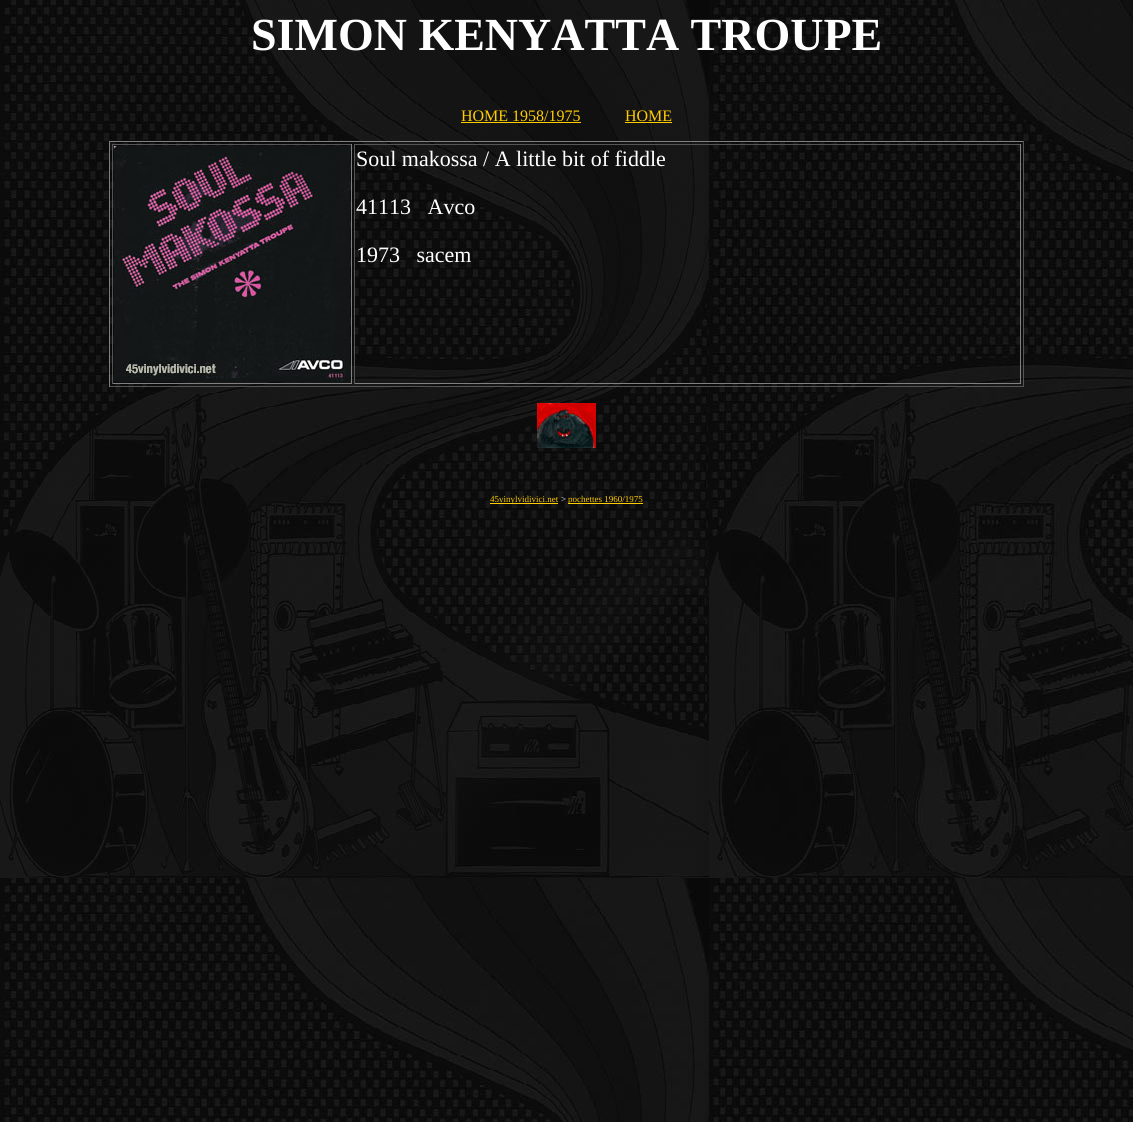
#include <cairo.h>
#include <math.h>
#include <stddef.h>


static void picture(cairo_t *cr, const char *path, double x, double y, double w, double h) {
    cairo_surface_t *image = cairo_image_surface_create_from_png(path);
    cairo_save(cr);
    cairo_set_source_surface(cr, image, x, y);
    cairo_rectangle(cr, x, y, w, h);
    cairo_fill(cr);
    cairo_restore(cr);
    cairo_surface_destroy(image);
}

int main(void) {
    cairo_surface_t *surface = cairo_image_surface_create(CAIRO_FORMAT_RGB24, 1133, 1122);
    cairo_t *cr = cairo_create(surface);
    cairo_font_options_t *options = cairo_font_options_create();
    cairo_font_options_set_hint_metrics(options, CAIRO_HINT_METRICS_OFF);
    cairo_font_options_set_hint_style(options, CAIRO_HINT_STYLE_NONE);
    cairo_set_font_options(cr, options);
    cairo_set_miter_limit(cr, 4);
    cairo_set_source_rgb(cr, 1, 1, 1);
    cairo_paint(cr);
    picture(cr, "img1.png", 0, 0, 1133, 1122);
    cairo_select_font_face(cr, "Liberation Serif", CAIRO_FONT_SLANT_NORMAL, CAIRO_FONT_WEIGHT_BOLD);
    cairo_set_font_size(cr, 46);
    cairo_set_source_rgb(cr, 1, 1, 1);
    cairo_move_to(cr, 251, 50);
    cairo_show_text(cr, "SIMON KENYATTA TROUPE");
    cairo_select_font_face(cr, "Liberation Serif", CAIRO_FONT_SLANT_NORMAL, CAIRO_FONT_WEIGHT_NORMAL);
    cairo_set_font_size(cr, 16);
    cairo_set_source_rgb(cr, 1, 0.8, 0);
    cairo_move_to(cr, 461, 121);
    cairo_show_text(cr, "HOME 1958/1975");
    cairo_rectangle(cr, 461, 122, 120, 1);
    cairo_fill(cr);
    cairo_move_to(cr, 625, 121);
    cairo_show_text(cr, "HOME");
    cairo_rectangle(cr, 625, 122, 47, 1);
    cairo_fill(cr);
    cairo_set_source_rgb(cr, 0.502, 0.502, 0.502);
    cairo_rectangle(cr, 109, 141, 915, 1);
    cairo_fill(cr);
    cairo_set_source_rgb(cr, 0.333, 0.333, 0.333);
    cairo_rectangle(cr, 1023, 141, 1, 246);
    cairo_fill(cr);
    cairo_rectangle(cr, 109, 386, 915, 1);
    cairo_fill(cr);
    cairo_set_source_rgb(cr, 0.502, 0.502, 0.502);
    cairo_rectangle(cr, 109, 141, 1, 246);
    cairo_fill(cr);
    cairo_set_source_rgb(cr, 0.333, 0.333, 0.333);
    cairo_rectangle(cr, 112, 144, 240, 1);
    cairo_fill(cr);
    cairo_set_source_rgb(cr, 0.502, 0.502, 0.502);
    cairo_rectangle(cr, 351, 144, 1, 240);
    cairo_fill(cr);
    cairo_rectangle(cr, 112, 383, 240, 1);
    cairo_fill(cr);
    cairo_set_source_rgb(cr, 0.333, 0.333, 0.333);
    cairo_rectangle(cr, 112, 144, 1, 240);
    cairo_fill(cr);
    picture(cr, "img2.png", 114, 146, 236, 236);
    cairo_rectangle(cr, 354, 144, 667, 1);
    cairo_fill(cr);
    cairo_set_source_rgb(cr, 0.502, 0.502, 0.502);
    cairo_rectangle(cr, 1020, 144, 1, 240);
    cairo_fill(cr);
    cairo_rectangle(cr, 354, 383, 667, 1);
    cairo_fill(cr);
    cairo_set_source_rgb(cr, 0.333, 0.333, 0.333);
    cairo_rectangle(cr, 354, 144, 1, 240);
    cairo_fill(cr);
    cairo_set_font_size(cr, 22);
    cairo_set_source_rgb(cr, 1, 1, 1);
    cairo_move_to(cr, 356, 166);
    cairo_show_text(cr, "Soul makossa / A little bit of fiddle");
    cairo_move_to(cr, 356, 214);
    cairo_show_text(cr, "41113   Avco");
    cairo_move_to(cr, 356, 262);
    cairo_show_text(cr, "1973   sacem");
    picture(cr, "img3.png", 537, 403, 59, 45);
    cairo_set_source_rgb(cr, 1, 0.8, 0);
    cairo_rectangle(cr, 490, 503, 68, 1);
    cairo_fill(cr);
    cairo_set_font_size(cr, 9);
    cairo_move_to(cr, 490, 502);
    cairo_show_text(cr, "45vinylvidivici.net");
    cairo_set_source_rgb(cr, 1, 1, 1);
    cairo_move_to(cr, 561, 502);
    cairo_show_text(cr, ">");
    cairo_set_source_rgb(cr, 1, 0.8, 0);
    cairo_rectangle(cr, 568, 503, 75, 1);
    cairo_fill(cr);
    cairo_move_to(cr, 568, 502);
    cairo_show_text(cr, "pochettes 1960/1975");
    cairo_surface_write_to_png(surface, "page.png");
    cairo_font_options_destroy(options);
    cairo_destroy(cr);
    cairo_surface_destroy(surface);
    return 0;
}
